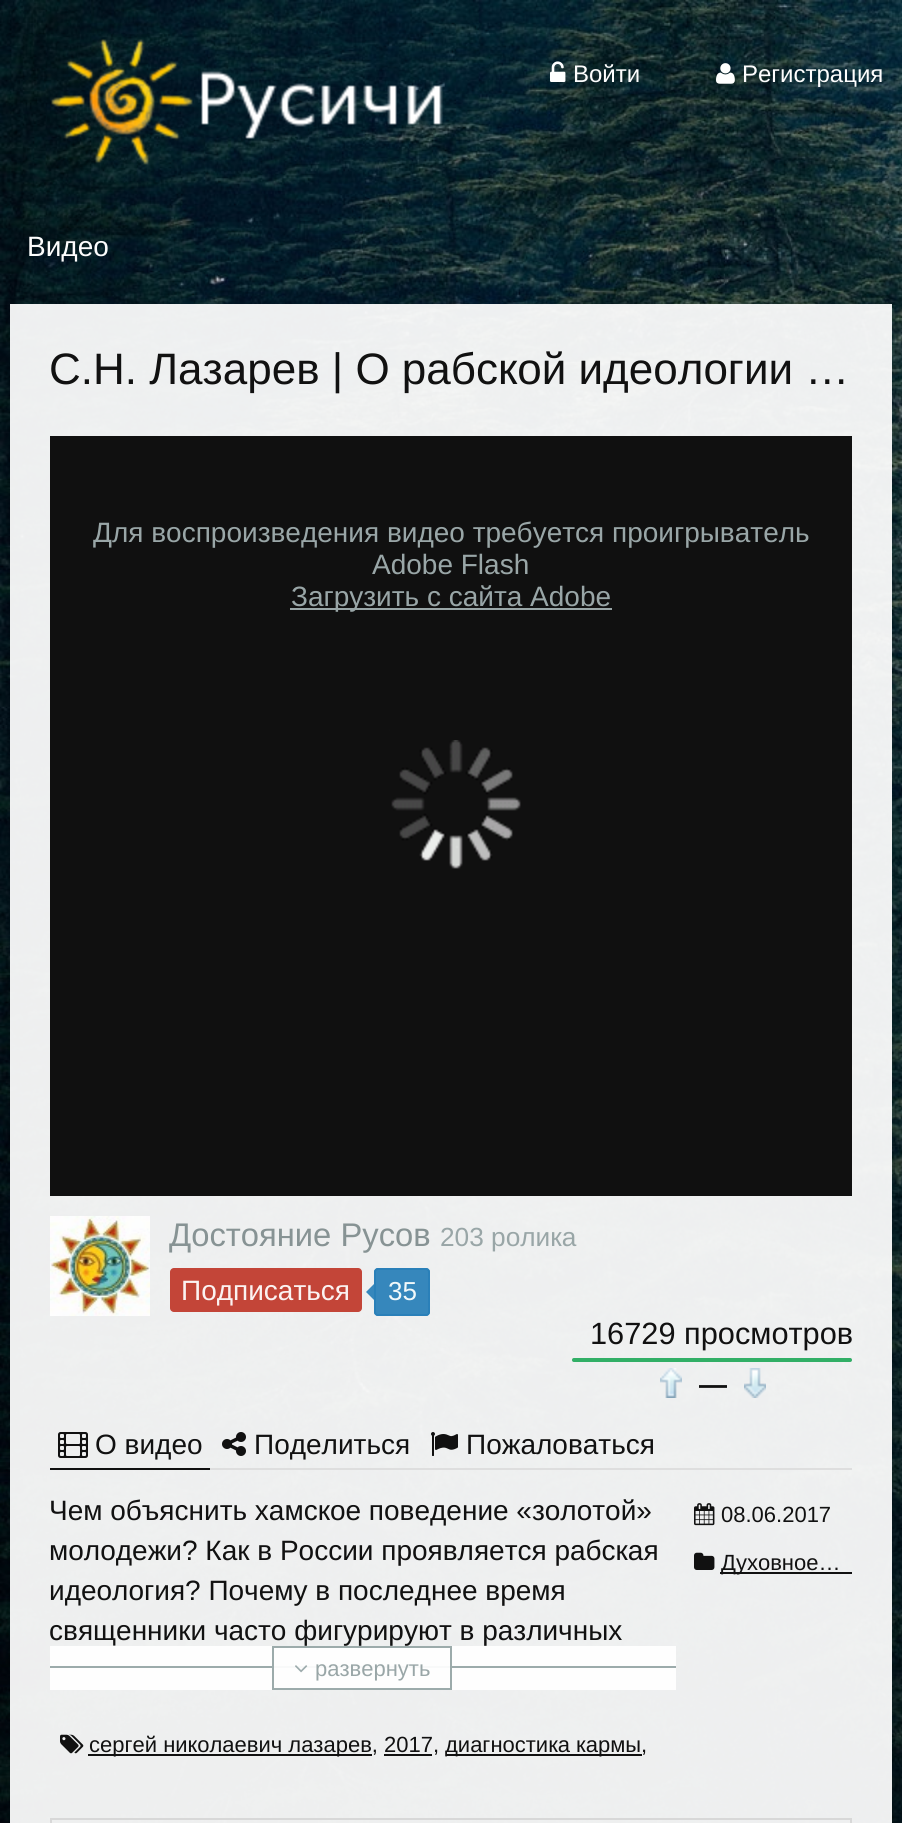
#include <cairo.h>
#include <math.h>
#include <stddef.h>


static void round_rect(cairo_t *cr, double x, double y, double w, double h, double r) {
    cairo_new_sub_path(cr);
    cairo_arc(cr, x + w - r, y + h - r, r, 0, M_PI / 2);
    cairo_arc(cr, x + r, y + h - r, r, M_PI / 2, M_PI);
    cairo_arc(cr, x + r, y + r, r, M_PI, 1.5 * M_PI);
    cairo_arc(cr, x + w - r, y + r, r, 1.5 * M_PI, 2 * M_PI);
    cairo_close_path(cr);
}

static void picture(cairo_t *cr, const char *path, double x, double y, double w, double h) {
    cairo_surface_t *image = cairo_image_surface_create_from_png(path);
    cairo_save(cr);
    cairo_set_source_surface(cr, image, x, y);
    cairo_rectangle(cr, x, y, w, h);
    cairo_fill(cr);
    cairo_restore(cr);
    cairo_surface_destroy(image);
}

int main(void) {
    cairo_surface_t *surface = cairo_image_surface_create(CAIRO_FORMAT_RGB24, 902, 1823);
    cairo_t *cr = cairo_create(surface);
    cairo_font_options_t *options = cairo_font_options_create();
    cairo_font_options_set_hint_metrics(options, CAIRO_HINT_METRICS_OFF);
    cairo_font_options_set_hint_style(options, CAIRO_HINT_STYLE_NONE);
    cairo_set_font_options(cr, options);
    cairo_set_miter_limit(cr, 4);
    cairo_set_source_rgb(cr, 1, 1, 1);
    cairo_paint(cr);
    picture(cr, "img1.png", 0, 0, 902, 1823);
    picture(cr, "img2.png", 51, 39, 392, 126);
    picture(cr, "img3.png", 550, 61, 16, 21);
    cairo_select_font_face(cr, "Liberation Sans", CAIRO_FONT_SLANT_NORMAL, CAIRO_FONT_WEIGHT_NORMAL);
    cairo_set_font_size(cr, 24);
    cairo_set_source_rgb(cr, 0.992, 0.992, 0.992);
    cairo_move_to(cr, 573, 82);
    cairo_show_text(cr, "Войти");
    picture(cr, "img4.png", 716, 63, 19, 21);
    cairo_move_to(cr, 742, 82);
    cairo_show_text(cr, "Регистрация");
    cairo_set_font_size(cr, 28);
    cairo_move_to(cr, 27, 256);
    cairo_show_text(cr, "Видео");
    cairo_set_source_rgba(cr, 1, 1, 1, 0.93);
    cairo_rectangle(cr, 10, 304, 882, 1519);
    cairo_fill(cr);
    cairo_set_font_size(cr, 44);
    cairo_set_source_rgb(cr, 0.067, 0.067, 0.067);
    cairo_move_to(cr, 49, 384);
    cairo_show_text(cr, "С.Н. Лазарев | О рабской идеологии …");
    cairo_set_source_rgba(cr, 0, 0, 0, 0.93);
    cairo_rectangle(cr, 50, 436, 802, 760);
    cairo_fill(cr);
    cairo_set_font_size(cr, 28);
    cairo_set_source_rgb(cr, 0.6, 0.651, 0.655);
    cairo_move_to(cr, 93, 542);
    cairo_show_text(cr, "Для воспроизведения видео требуется проигрыватель");
    cairo_move_to(cr, 372, 574);
    cairo_show_text(cr, "Adobe Flash");
    cairo_rectangle(cr, 290, 608, 322, 2);
    cairo_fill(cr);
    cairo_move_to(cr, 291, 606);
    cairo_show_text(cr, "Загрузить с сайта Adobe");
    picture(cr, "img5.png", 391, 740, 130, 129);
    picture(cr, "img6.png", 50, 1216, 100, 100);
    cairo_set_font_size(cr, 32.75);
    cairo_set_source_rgb(cr, 0.529, 0.576, 0.58);
    cairo_move_to(cr, 169, 1246);
    cairo_show_text(cr, "Достояние Русов");
    cairo_set_font_size(cr, 26.25);
    cairo_set_source_rgb(cr, 0.6, 0.651, 0.655);
    cairo_move_to(cr, 440, 1246);
    cairo_show_text(cr, "203 ролика");
    cairo_set_source_rgba(cr, 0.753, 0.224, 0.169, 0.93);
    round_rect(cr, 170, 1268, 192, 44, 4);
    cairo_fill(cr);
    cairo_set_font_size(cr, 28);
    cairo_set_source_rgb(cr, 0.984, 0.949, 0.945);
    cairo_move_to(cr, 181, 1300);
    cairo_show_text(cr, "Подписаться");
    cairo_set_source_rgba(cr, 0.161, 0.502, 0.725, 0.93);
    round_rect(cr, 374, 1268, 56, 48, 4);
    cairo_fill(cr);
    round_rect(cr, 375, 1269, 54, 46, 3);
    cairo_stroke(cr);
    cairo_new_path(cr);
    cairo_move_to(cr, 376, 1282);
    cairo_line_to(cr, 376, 1302);
    cairo_line_to(cr, 366, 1292);
    cairo_close_path(cr);
    cairo_fill(cr);
    cairo_set_font_size(cr, 26);
    cairo_set_source_rgb(cr, 0.945, 0.969, 0.98);
    cairo_move_to(cr, 388, 1300);
    cairo_show_text(cr, "35");
    cairo_set_font_size(cr, 30.75);
    cairo_set_source_rgb(cr, 0.067, 0.067, 0.067);
    cairo_move_to(cr, 590, 1344);
    cairo_show_text(cr, "16729 просмотров");
    cairo_set_source_rgba(cr, 0.741, 0.765, 0.78, 0.93);
    round_rect(cr, 572, 1358, 280, 4, 2);
    cairo_fill(cr);
    cairo_set_source_rgba(cr, 0.153, 0.682, 0.376, 0.93);
    round_rect(cr, 572, 1358, 280, 4, 2);
    cairo_fill(cr);
    picture(cr, "img7.png", 660, 1368, 22, 30);
    cairo_select_font_face(cr, "Liberation Sans", CAIRO_FONT_SLANT_NORMAL, CAIRO_FONT_WEIGHT_BOLD);
    cairo_set_font_size(cr, 28);
    cairo_set_source_rgb(cr, 0.067, 0.067, 0.067);
    cairo_move_to(cr, 699, 1394);
    cairo_show_text(cr, "—");
    picture(cr, "img8.png", 744, 1368, 22, 30);
    cairo_set_source_rgba(cr, 0.867, 0.867, 0.867, 0.93);
    cairo_rectangle(cr, 210, 1468, 642, 2);
    cairo_fill(cr);
    cairo_set_source_rgb(cr, 0.063, 0.063, 0.063);
    cairo_rectangle(cr, 50, 1468, 160, 2);
    cairo_fill(cr);
    picture(cr, "img9.png", 58, 1432, 30, 26);
    cairo_select_font_face(cr, "Liberation Sans", CAIRO_FONT_SLANT_NORMAL, CAIRO_FONT_WEIGHT_NORMAL);
    cairo_set_source_rgb(cr, 0.067, 0.067, 0.067);
    cairo_move_to(cr, 95, 1454);
    cairo_show_text(cr, "О видео");
    picture(cr, "img10.png", 222, 1432, 24, 24);
    cairo_move_to(cr, 254, 1454);
    cairo_show_text(cr, "Поделиться");
    picture(cr, "img11.png", 431, 1432, 27, 24);
    cairo_move_to(cr, 466, 1454);
    cairo_show_text(cr, "Пожаловаться");
    cairo_move_to(cr, 49, 1520);
    cairo_show_text(cr, "Чем объяснить хамское поведение «золотой»");
    cairo_move_to(cr, 49, 1560);
    cairo_show_text(cr, "молодежи? Как в России проявляется рабская");
    cairo_move_to(cr, 49, 1600);
    cairo_show_text(cr, "идеология? Почему в последнее время");
    cairo_move_to(cr, 49, 1640);
    cairo_show_text(cr, "священники часто фигурируют в различных");
    cairo_set_source_rgba(cr, 1, 1, 1, 0.93);
    cairo_rectangle(cr, 50, 1646, 626, 44);
    cairo_fill(cr);
    cairo_set_source_rgba(cr, 0.584, 0.647, 0.651, 0.93);
    cairo_rectangle(cr, 50, 1666, 626, 2);
    cairo_fill(cr);
    cairo_set_source_rgba(cr, 1, 1, 1, 0.93);
    cairo_rectangle(cr, 272, 1666, 180, 2);
    cairo_fill(cr);
    cairo_rectangle(cr, 273, 1647, 178, 42);
    cairo_set_source_rgba(cr, 0.584, 0.647, 0.651, 0.93);
    cairo_stroke(cr);
    picture(cr, "img12.png", 295, 1665, 13, 8);
    cairo_set_font_size(cr, 22);
    cairo_set_source_rgb(cr, 0.6, 0.651, 0.655);
    cairo_move_to(cr, 315, 1676);
    cairo_show_text(cr, "развернуть");
    picture(cr, "img13.png", 60, 1734, 24, 20);
    cairo_set_source_rgb(cr, 0.067, 0.067, 0.067);
    cairo_rectangle(cr, 88, 1754, 284, 2);
    cairo_fill(cr);
    cairo_move_to(cr, 89, 1752);
    cairo_show_text(cr, "сергей николаевич лазарев, 2017,");
    cairo_set_source_rgba(cr, 0, 0, 0, 0.93);
    cairo_rectangle(cr, 446, 1754, 196, 2);
    cairo_fill(cr);
    cairo_set_source_rgb(cr, 0.067, 0.067, 0.067);
    cairo_move_to(cr, 445, 1752);
    cairo_show_text(cr, "диагностика кармы");
    cairo_move_to(cr, 641, 1752);
    cairo_show_text(cr, ",");
    cairo_rectangle(cr, 384, 1754, 48, 2);
    cairo_fill(cr);
    picture(cr, "img14.png", 694, 1503, 21, 23);
    cairo_move_to(cr, 721, 1522);
    cairo_show_text(cr, "08.06.2017");
    picture(cr, "img15.png", 694, 1552, 21, 18);
    cairo_rectangle(cr, 720, 1572, 132, 2);
    cairo_fill(cr);
    cairo_move_to(cr, 721, 1570);
    cairo_show_text(cr, "Духовное…");
    cairo_rectangle(cr, 51, 1819, 800, 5);
    cairo_set_source_rgb(cr, 0.847, 0.847, 0.847);
    cairo_stroke(cr);
    cairo_surface_write_to_png(surface, "page.png");
    cairo_font_options_destroy(options);
    cairo_destroy(cr);
    cairo_surface_destroy(surface);
    return 0;
}
